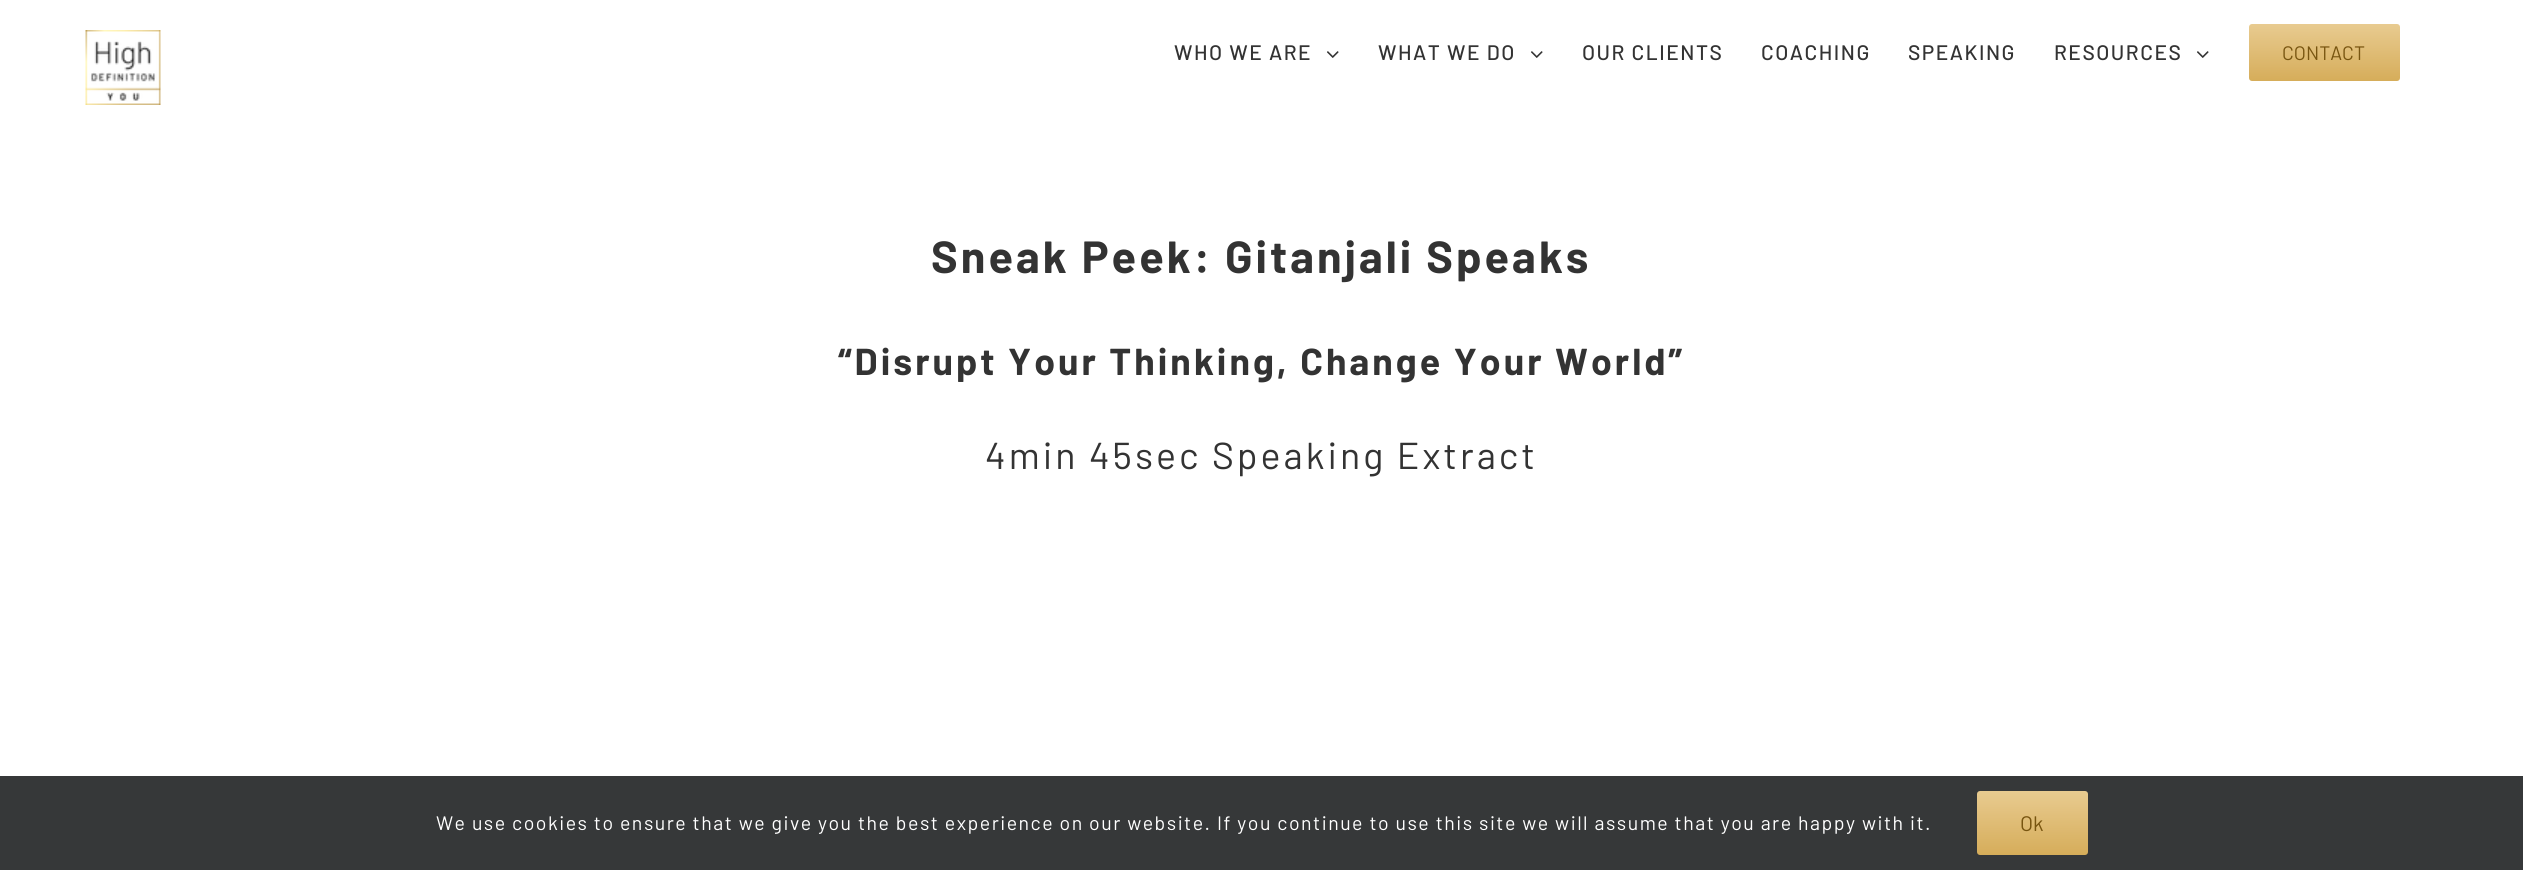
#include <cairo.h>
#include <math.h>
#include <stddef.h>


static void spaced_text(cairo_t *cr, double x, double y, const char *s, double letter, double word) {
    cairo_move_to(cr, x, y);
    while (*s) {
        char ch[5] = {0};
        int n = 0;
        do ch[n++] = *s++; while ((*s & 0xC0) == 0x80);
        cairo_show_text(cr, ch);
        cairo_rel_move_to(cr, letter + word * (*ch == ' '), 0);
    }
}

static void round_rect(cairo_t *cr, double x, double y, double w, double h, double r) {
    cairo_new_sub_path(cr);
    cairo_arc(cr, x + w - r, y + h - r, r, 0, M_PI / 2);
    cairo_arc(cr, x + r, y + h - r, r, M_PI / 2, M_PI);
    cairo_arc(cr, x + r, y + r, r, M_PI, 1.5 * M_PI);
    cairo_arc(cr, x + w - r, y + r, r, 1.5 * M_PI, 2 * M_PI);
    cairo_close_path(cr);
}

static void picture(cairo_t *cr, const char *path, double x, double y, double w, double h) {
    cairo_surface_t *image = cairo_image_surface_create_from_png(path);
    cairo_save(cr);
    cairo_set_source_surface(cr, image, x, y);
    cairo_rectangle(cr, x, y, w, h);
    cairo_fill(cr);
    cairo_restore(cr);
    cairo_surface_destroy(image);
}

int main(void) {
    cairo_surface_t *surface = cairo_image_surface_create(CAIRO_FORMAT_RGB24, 2523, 870);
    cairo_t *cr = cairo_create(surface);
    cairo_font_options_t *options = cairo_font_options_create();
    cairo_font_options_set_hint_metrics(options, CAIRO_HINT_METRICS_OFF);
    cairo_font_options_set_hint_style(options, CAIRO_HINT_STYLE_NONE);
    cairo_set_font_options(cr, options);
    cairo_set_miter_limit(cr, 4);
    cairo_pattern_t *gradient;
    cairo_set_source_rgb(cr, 1, 1, 1);
    cairo_paint(cr);
    picture(cr, "img1.png", 85, 30, 76, 75);
    cairo_select_font_face(cr, "Barlow Medium", CAIRO_FONT_SLANT_NORMAL, CAIRO_FONT_WEIGHT_NORMAL);
    cairo_set_font_size(cr, 21);
    cairo_set_source_rgb(cr, 0.2, 0.2, 0.2);
    spaced_text(cr, 1174, 60, "WHO WE ARE", 1.5, 0);
    picture(cr, "img2.png", 1327, 51, 12, 7);
    spaced_text(cr, 1378, 60, "WHAT WE DO", 1.5, 0);
    picture(cr, "img2.png", 1531, 51, 12, 7);
    spaced_text(cr, 1582, 60, "OUR CLIENTS", 1.5, 0);
    spaced_text(cr, 1761, 60, "COACHING", 1.5, 0);
    spaced_text(cr, 1908, 60, "SPEAKING", 1.5, 0);
    spaced_text(cr, 2054, 60, "RESOURCES", 1.5, 0);
    picture(cr, "img2.png", 2197, 51, 12, 7);
    gradient = cairo_pattern_create_linear(2324, 24, 2324, 81);
    cairo_pattern_add_color_stop_rgba(gradient, 0, 0.91, 0.796, 0.565, 1);
    cairo_pattern_add_color_stop_rgba(gradient, 1, 0.839, 0.678, 0.353, 1);
    cairo_set_source(cr, gradient);
    cairo_pattern_destroy(gradient);
    round_rect(cr, 2249, 24, 151, 57, 3);
    cairo_fill(cr);
    cairo_select_font_face(cr, "Barlow", CAIRO_FONT_SLANT_NORMAL, CAIRO_FONT_WEIGHT_NORMAL);
    cairo_set_font_size(cr, 19.5);
    cairo_set_source_rgb(cr, 0.471, 0.333, 0.063);
    cairo_move_to(cr, 2282, 60);
    cairo_show_text(cr, "CONTACT");
    cairo_select_font_face(cr, "Barlow", CAIRO_FONT_SLANT_NORMAL, CAIRO_FONT_WEIGHT_BOLD);
    cairo_set_font_size(cr, 45);
    cairo_set_source_rgb(cr, 0.2, 0.2, 0.2);
    spaced_text(cr, 931, 273, "Sneak Peek: Gitanjali Speaks", 3, 0);
    cairo_set_font_size(cr, 37.5);
    spaced_text(cr, 838, 375, "“Disrupt Your Thinking, Change Your World”", 3, 0);
    cairo_select_font_face(cr, "Barlow", CAIRO_FONT_SLANT_NORMAL, CAIRO_FONT_WEIGHT_NORMAL);
    spaced_text(cr, 985, 469, "4min 45sec Speaking Extract", 3, 0);
    cairo_set_source_rgb(cr, 0.212, 0.22, 0.224);
    cairo_rectangle(cr, 0, 776, 2523, 94);
    cairo_fill(cr);
    cairo_set_font_size(cr, 19.5);
    cairo_set_source_rgb(cr, 1, 1, 1);
    spaced_text(cr, 436, 830, "We use cookies to ensure that we give you the best experience on our website. If you continue to use this site we will assume that you are happy with it.", 1.5, 0);
    gradient = cairo_pattern_create_linear(2033, 791, 2033, 855);
    cairo_pattern_add_color_stop_rgba(gradient, 0, 0.91, 0.796, 0.565, 1);
    cairo_pattern_add_color_stop_rgba(gradient, 1, 0.839, 0.678, 0.353, 1);
    cairo_set_source(cr, gradient);
    cairo_pattern_destroy(gradient);
    round_rect(cr, 1977, 791, 111, 64, 3);
    cairo_fill(cr);
    cairo_set_font_size(cr, 21);
    cairo_set_source_rgb(cr, 0.471, 0.333, 0.063);
    cairo_move_to(cr, 2020, 831);
    cairo_show_text(cr, "Ok");
    cairo_surface_write_to_png(surface, "page.png");
    cairo_font_options_destroy(options);
    cairo_destroy(cr);
    cairo_surface_destroy(surface);
    return 0;
}
